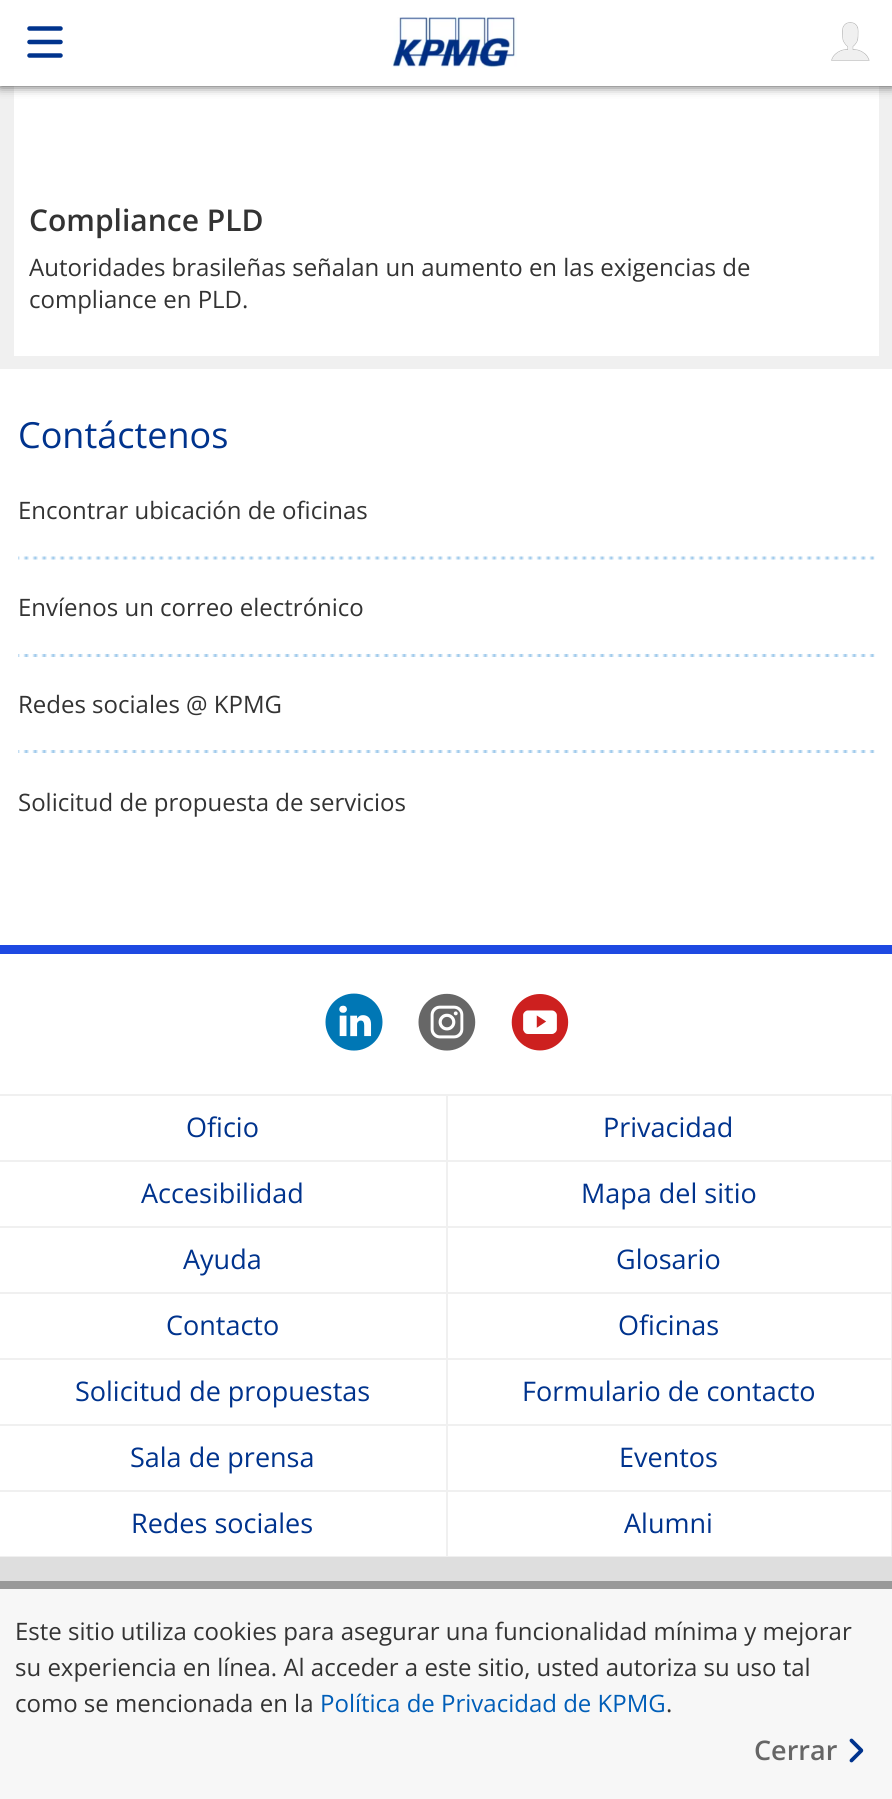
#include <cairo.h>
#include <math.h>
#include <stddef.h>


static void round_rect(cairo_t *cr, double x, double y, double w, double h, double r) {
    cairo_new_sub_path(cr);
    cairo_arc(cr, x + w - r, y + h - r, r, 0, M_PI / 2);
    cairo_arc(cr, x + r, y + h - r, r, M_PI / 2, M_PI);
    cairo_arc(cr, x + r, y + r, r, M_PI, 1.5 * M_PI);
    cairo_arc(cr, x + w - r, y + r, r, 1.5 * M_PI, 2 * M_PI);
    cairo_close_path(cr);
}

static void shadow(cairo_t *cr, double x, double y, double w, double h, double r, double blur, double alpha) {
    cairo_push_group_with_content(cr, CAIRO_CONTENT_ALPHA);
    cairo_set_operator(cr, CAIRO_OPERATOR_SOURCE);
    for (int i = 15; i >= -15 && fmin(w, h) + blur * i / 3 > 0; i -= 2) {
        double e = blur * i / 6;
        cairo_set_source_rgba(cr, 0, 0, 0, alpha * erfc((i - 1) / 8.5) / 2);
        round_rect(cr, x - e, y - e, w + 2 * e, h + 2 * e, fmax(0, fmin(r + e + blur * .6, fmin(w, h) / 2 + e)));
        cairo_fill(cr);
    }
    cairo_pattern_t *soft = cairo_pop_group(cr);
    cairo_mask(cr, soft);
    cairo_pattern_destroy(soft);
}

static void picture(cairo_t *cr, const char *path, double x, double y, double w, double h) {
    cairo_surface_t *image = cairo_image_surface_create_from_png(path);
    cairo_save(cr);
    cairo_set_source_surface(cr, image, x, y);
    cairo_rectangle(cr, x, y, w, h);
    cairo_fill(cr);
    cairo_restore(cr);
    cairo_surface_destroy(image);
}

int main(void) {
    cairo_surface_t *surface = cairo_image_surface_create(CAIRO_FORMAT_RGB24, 892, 1799);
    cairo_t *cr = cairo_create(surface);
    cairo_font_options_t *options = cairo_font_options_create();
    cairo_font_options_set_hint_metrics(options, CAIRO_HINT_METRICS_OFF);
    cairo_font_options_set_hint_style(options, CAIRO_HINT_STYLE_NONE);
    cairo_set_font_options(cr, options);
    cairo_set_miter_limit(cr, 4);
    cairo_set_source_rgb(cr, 1, 1, 1);
    cairo_paint(cr);
    cairo_set_source_rgb(cr, 0.941, 0.941, 0.941);
    cairo_rectangle(cr, 0, 86, 892, 283);
    cairo_fill(cr);
    cairo_set_source_rgb(cr, 1, 1, 1);
    cairo_rectangle(cr, 14, 86, 865, 270);
    cairo_fill(cr);
    cairo_set_source_rgb(cr, 0, 0, 0);
    shadow(cr, 0, -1, 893, 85, 0, 6, 1);
    cairo_set_source_rgb(cr, 1, 1, 1);
    cairo_rectangle(cr, 0, 0, 892, 86);
    cairo_fill(cr);
    cairo_new_path(cr);
    cairo_move_to(cr, 29.5, 28.5);
    cairo_line_to(cr, 60.5, 28.5);
    cairo_move_to(cr, 29.5, 42);
    cairo_line_to(cr, 60.5, 42);
    cairo_move_to(cr, 29.5, 55.5);
    cairo_line_to(cr, 60.5, 55.5);
    cairo_set_source_rgb(cr, 0, 0.2, 0.553);
    cairo_set_line_width(cr, 4.5);
    cairo_set_line_cap(cr, CAIRO_LINE_CAP_ROUND);
    cairo_stroke(cr);
    picture(cr, "img1.png", 390, 16, 127, 52);
    picture(cr, "img2.png", 831, 22, 39, 39);
    picture(cr, "img3.png", 832, 23, 37, 37);
    cairo_select_font_face(cr, "Open Sans SemiBold", CAIRO_FONT_SLANT_NORMAL, CAIRO_FONT_WEIGHT_NORMAL);
    cairo_set_font_size(cr, 30);
    cairo_set_source_rgb(cr, 0.2, 0.2, 0.2);
    cairo_move_to(cr, 29, 231);
    cairo_show_text(cr, "Compliance PLD");
    cairo_select_font_face(cr, "Open Sans", CAIRO_FONT_SLANT_NORMAL, CAIRO_FONT_WEIGHT_NORMAL);
    cairo_set_font_size(cr, 24);
    cairo_move_to(cr, 29, 276);
    cairo_show_text(cr, "Autoridades brasileñas señalan un aumento en las exigencias de");
    cairo_move_to(cr, 29, 308);
    cairo_show_text(cr, "compliance en PLD.");
    cairo_set_font_size(cr, 36);
    cairo_set_source_rgb(cr, 0, 0.2, 0.553);
    cairo_move_to(cr, 18, 448);
    cairo_show_text(cr, "Contáctenos");
    cairo_set_font_size(cr, 24);
    cairo_set_source_rgb(cr, 0.2, 0.2, 0.2);
    cairo_move_to(cr, 18, 519);
    cairo_show_text(cr, "Encontrar ubicación de oficinas");
    picture(cr, "img4.png", 18, 556, 857, 4);
    cairo_move_to(cr, 18, 616);
    cairo_show_text(cr, "Envíenos un correo electrónico");
    picture(cr, "img5.png", 18, 654, 857, 3);
    cairo_move_to(cr, 18, 713);
    cairo_show_text(cr, "Redes sociales @ KPMG");
    picture(cr, "img5.png", 18, 750, 857, 3);
    cairo_move_to(cr, 18, 811);
    cairo_show_text(cr, "Solicitud de propuesta de servicios");
    cairo_set_source_rgb(cr, 0.118, 0.286, 0.886);
    cairo_rectangle(cr, 0, 945, 892, 9);
    cairo_fill(cr);
    picture(cr, "img6.png", 325, 993, 58, 58);
    picture(cr, "img7.png", 418, 993, 58, 58);
    picture(cr, "img8.png", 511, 994, 58, 57);
    cairo_set_source_rgb(cr, 0.941, 0.941, 0.941);
    cairo_rectangle(cr, 0, 1094, 892, 2);
    cairo_fill(cr);
    cairo_rectangle(cr, 446, 1095, 2, 66);
    cairo_fill(cr);
    cairo_rectangle(cr, 0, 1160, 447, 2);
    cairo_fill(cr);
    cairo_set_font_size(cr, 27);
    cairo_set_source_rgb(cr, 0, 0.2, 0.553);
    cairo_move_to(cr, 186, 1137);
    cairo_show_text(cr, "Oficio");
    cairo_set_source_rgb(cr, 0.941, 0.941, 0.941);
    cairo_rectangle(cr, 891, 1095, 1, 66);
    cairo_fill(cr);
    cairo_rectangle(cr, 447, 1160, 445, 2);
    cairo_fill(cr);
    cairo_set_source_rgb(cr, 0, 0.2, 0.553);
    cairo_move_to(cr, 603, 1137);
    cairo_show_text(cr, "Privacidad");
    cairo_set_source_rgb(cr, 0.941, 0.941, 0.941);
    cairo_rectangle(cr, 446, 1161, 2, 66);
    cairo_fill(cr);
    cairo_rectangle(cr, 0, 1226, 447, 2);
    cairo_fill(cr);
    cairo_set_source_rgb(cr, 0, 0.2, 0.553);
    cairo_move_to(cr, 141, 1203);
    cairo_show_text(cr, "Accesibilidad");
    cairo_set_source_rgb(cr, 0.941, 0.941, 0.941);
    cairo_rectangle(cr, 891, 1161, 1, 66);
    cairo_fill(cr);
    cairo_rectangle(cr, 447, 1226, 445, 2);
    cairo_fill(cr);
    cairo_set_source_rgb(cr, 0, 0.2, 0.553);
    cairo_move_to(cr, 581, 1203);
    cairo_show_text(cr, "Mapa del sitio");
    cairo_set_source_rgb(cr, 0.941, 0.941, 0.941);
    cairo_rectangle(cr, 446, 1227, 2, 66);
    cairo_fill(cr);
    cairo_rectangle(cr, 0, 1292, 447, 2);
    cairo_fill(cr);
    cairo_set_source_rgb(cr, 0, 0.2, 0.553);
    cairo_move_to(cr, 183, 1269);
    cairo_show_text(cr, "Ayuda");
    cairo_set_source_rgb(cr, 0.941, 0.941, 0.941);
    cairo_rectangle(cr, 891, 1227, 1, 66);
    cairo_fill(cr);
    cairo_rectangle(cr, 447, 1292, 445, 2);
    cairo_fill(cr);
    cairo_set_source_rgb(cr, 0, 0.2, 0.553);
    cairo_move_to(cr, 616, 1269);
    cairo_show_text(cr, "Glosario");
    cairo_set_source_rgb(cr, 0.941, 0.941, 0.941);
    cairo_rectangle(cr, 446, 1293, 2, 66);
    cairo_fill(cr);
    cairo_rectangle(cr, 0, 1358, 447, 2);
    cairo_fill(cr);
    cairo_set_source_rgb(cr, 0, 0.2, 0.553);
    cairo_move_to(cr, 166, 1335);
    cairo_show_text(cr, "Contacto");
    cairo_set_source_rgb(cr, 0.941, 0.941, 0.941);
    cairo_rectangle(cr, 891, 1293, 1, 66);
    cairo_fill(cr);
    cairo_rectangle(cr, 447, 1358, 445, 2);
    cairo_fill(cr);
    cairo_set_source_rgb(cr, 0, 0.2, 0.553);
    cairo_move_to(cr, 618, 1335);
    cairo_show_text(cr, "Oficinas");
    cairo_set_source_rgb(cr, 0.941, 0.941, 0.941);
    cairo_rectangle(cr, 446, 1359, 2, 66);
    cairo_fill(cr);
    cairo_rectangle(cr, 0, 1424, 447, 2);
    cairo_fill(cr);
    cairo_set_source_rgb(cr, 0, 0.2, 0.553);
    cairo_move_to(cr, 75, 1401);
    cairo_show_text(cr, "Solicitud de propuestas");
    cairo_set_source_rgb(cr, 0.941, 0.941, 0.941);
    cairo_rectangle(cr, 891, 1359, 1, 66);
    cairo_fill(cr);
    cairo_rectangle(cr, 447, 1424, 445, 2);
    cairo_fill(cr);
    cairo_set_source_rgb(cr, 0, 0.2, 0.553);
    cairo_move_to(cr, 522, 1401);
    cairo_show_text(cr, "Formulario de contacto");
    cairo_set_source_rgb(cr, 0.941, 0.941, 0.941);
    cairo_rectangle(cr, 446, 1425, 2, 66);
    cairo_fill(cr);
    cairo_rectangle(cr, 0, 1490, 447, 2);
    cairo_fill(cr);
    cairo_set_source_rgb(cr, 0, 0.2, 0.553);
    cairo_move_to(cr, 130, 1467);
    cairo_show_text(cr, "Sala de prensa");
    cairo_set_source_rgb(cr, 0.941, 0.941, 0.941);
    cairo_rectangle(cr, 891, 1425, 1, 66);
    cairo_fill(cr);
    cairo_rectangle(cr, 447, 1490, 445, 2);
    cairo_fill(cr);
    cairo_set_source_rgb(cr, 0, 0.2, 0.553);
    cairo_move_to(cr, 619, 1467);
    cairo_show_text(cr, "Eventos");
    cairo_set_source_rgb(cr, 0.941, 0.941, 0.941);
    cairo_rectangle(cr, 446, 1491, 2, 66);
    cairo_fill(cr);
    cairo_rectangle(cr, 0, 1556, 447, 1);
    cairo_fill(cr);
    cairo_set_source_rgb(cr, 0, 0.2, 0.553);
    cairo_move_to(cr, 131, 1533);
    cairo_show_text(cr, "Redes sociales");
    cairo_set_source_rgb(cr, 0.941, 0.941, 0.941);
    cairo_rectangle(cr, 891, 1491, 1, 66);
    cairo_fill(cr);
    cairo_rectangle(cr, 447, 1556, 445, 1);
    cairo_fill(cr);
    cairo_set_source_rgb(cr, 0, 0.2, 0.553);
    cairo_move_to(cr, 624, 1533);
    cairo_show_text(cr, "Alumni");
    cairo_set_source_rgb(cr, 0.871, 0.871, 0.871);
    cairo_rectangle(cr, 0, 1557, 892, 24);
    cairo_fill(cr);
    cairo_set_source_rgb(cr, 0.965, 0.965, 0.965);
    cairo_rectangle(cr, 0, 1589, 892, 210);
    cairo_fill(cr);
    cairo_set_source_rgb(cr, 0.6, 0.6, 0.6);
    cairo_rectangle(cr, 0, 1581, 892, 8);
    cairo_fill(cr);
    cairo_set_font_size(cr, 24);
    cairo_set_source_rgb(cr, 0.2, 0.2, 0.2);
    cairo_move_to(cr, 15, 1640);
    cairo_show_text(cr, "Este sitio utiliza cookies para asegurar una funcionalidad mínima y mejorar");
    cairo_move_to(cr, 15, 1676);
    cairo_show_text(cr, "su experiencia en línea. Al acceder a este sitio, usted autoriza su uso tal");
    cairo_move_to(cr, 15, 1712);
    cairo_show_text(cr, "como se mencionada en la");
    cairo_set_source_rgb(cr, 0, 0.369, 0.722);
    cairo_move_to(cr, 320, 1712);
    cairo_show_text(cr, "Política de Privacidad de KPMG");
    cairo_set_source_rgb(cr, 0.2, 0.2, 0.2);
    cairo_move_to(cr, 666, 1712);
    cairo_show_text(cr, ".");
    cairo_select_font_face(cr, "Open Sans SemiBold", CAIRO_FONT_SLANT_NORMAL, CAIRO_FONT_WEIGHT_NORMAL);
    cairo_set_font_size(cr, 27);
    cairo_set_source_rgb(cr, 0.4, 0.4, 0.4);
    cairo_move_to(cr, 754, 1760);
    cairo_show_text(cr, "Cerrar");
    picture(cr, "img9.png", 849, 1738, 15, 25);
    cairo_surface_write_to_png(surface, "page.png");
    cairo_font_options_destroy(options);
    cairo_destroy(cr);
    cairo_surface_destroy(surface);
    return 0;
}
